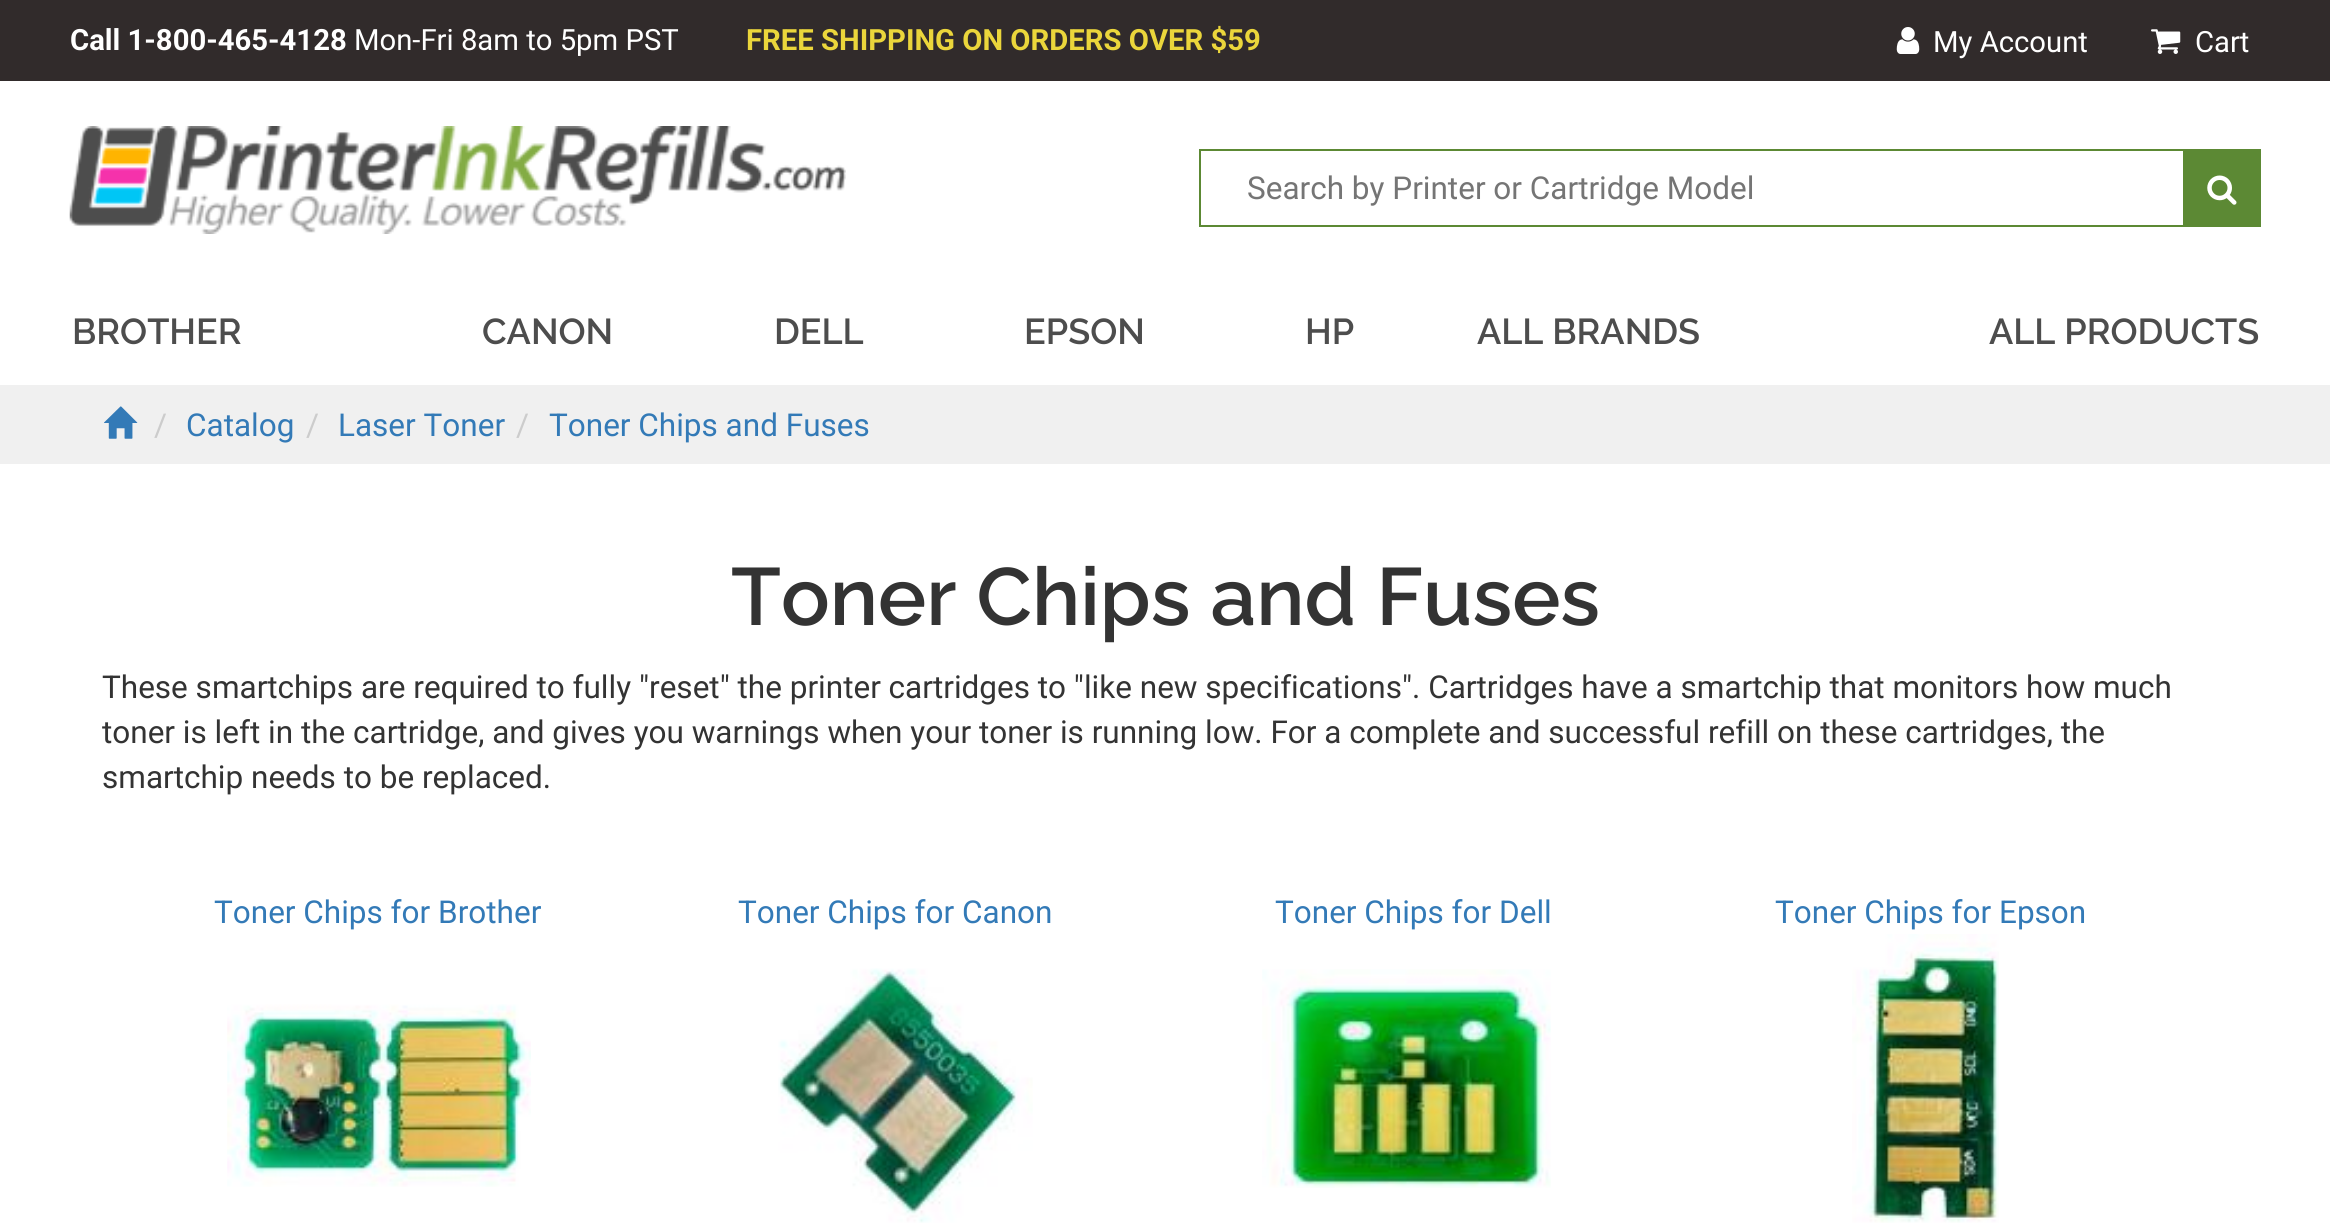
#include <cairo.h>
#include <math.h>
#include <stddef.h>


static void picture(cairo_t *cr, const char *path, double x, double y, double w, double h) {
    cairo_surface_t *image = cairo_image_surface_create_from_png(path);
    cairo_save(cr);
    cairo_set_source_surface(cr, image, x, y);
    cairo_rectangle(cr, x, y, w, h);
    cairo_fill(cr);
    cairo_restore(cr);
    cairo_surface_destroy(image);
}

int main(void) {
    cairo_surface_t *surface = cairo_image_surface_create(CAIRO_FORMAT_RGB24, 2330, 1230);
    cairo_t *cr = cairo_create(surface);
    cairo_font_options_t *options = cairo_font_options_create();
    cairo_font_options_set_hint_metrics(options, CAIRO_HINT_METRICS_OFF);
    cairo_font_options_set_hint_style(options, CAIRO_HINT_STYLE_NONE);
    cairo_set_font_options(cr, options);
    cairo_set_miter_limit(cr, 4);
    cairo_set_source_rgb(cr, 1, 1, 1);
    cairo_paint(cr);
    cairo_set_source_rgb(cr, 0.192, 0.169, 0.169);
    cairo_rectangle(cr, 0, 0, 2330, 81);
    cairo_fill(cr);
    cairo_select_font_face(cr, "Roboto", CAIRO_FONT_SLANT_NORMAL, CAIRO_FONT_WEIGHT_BOLD);
    cairo_set_font_size(cr, 29.25);
    cairo_set_source_rgb(cr, 1, 1, 1);
    cairo_move_to(cr, 70, 50);
    cairo_show_text(cr, "Call 1-800-465-4128");
    cairo_select_font_face(cr, "Roboto", CAIRO_FONT_SLANT_NORMAL, CAIRO_FONT_WEIGHT_NORMAL);
    cairo_move_to(cr, 354, 50);
    cairo_show_text(cr, "Mon-Fri 8am to 5pm PST");
    cairo_select_font_face(cr, "Roboto", CAIRO_FONT_SLANT_NORMAL, CAIRO_FONT_WEIGHT_BOLD);
    cairo_set_source_rgb(cr, 0.918, 0.839, 0.231);
    cairo_move_to(cr, 746, 50);
    cairo_show_text(cr, "FREE SHIPPING ON ORDERS OVER $59");
    picture(cr, "img1.png", 1896, 27, 24, 27);
    cairo_select_font_face(cr, "Roboto", CAIRO_FONT_SLANT_NORMAL, CAIRO_FONT_WEIGHT_NORMAL);
    cairo_set_source_rgb(cr, 1, 1, 1);
    cairo_move_to(cr, 1933, 52);
    cairo_show_text(cr, "My Account");
    picture(cr, "img2.png", 2151, 29, 30, 25);
    cairo_move_to(cr, 2195, 52);
    cairo_show_text(cr, "Cart");
    picture(cr, "img3.png", 69, 126, 777, 108);
    cairo_rectangle(cr, 1200, 150, 1060, 76);
    cairo_set_source_rgb(cr, 0.361, 0.537, 0.204);
    cairo_stroke(cr);
    cairo_set_font_size(cr, 31.5);
    cairo_set_source_rgb(cr, 0.459, 0.459, 0.459);
    cairo_move_to(cr, 1247, 199);
    cairo_show_text(cr, "Search by Printer or Cartridge Model");
    cairo_set_source_rgb(cr, 0.361, 0.537, 0.204);
    cairo_rectangle(cr, 2183, 151, 76, 74);
    cairo_fill(cr);
    picture(cr, "img4.png", 2207, 175, 30, 30);
    cairo_select_font_face(cr, "Raleway SemiBold", CAIRO_FONT_SLANT_NORMAL, CAIRO_FONT_WEIGHT_NORMAL);
    cairo_set_font_size(cr, 36);
    cairo_set_source_rgb(cr, 0.302, 0.302, 0.302);
    cairo_move_to(cr, 72, 344);
    cairo_show_text(cr, "BROTHER");
    cairo_move_to(cr, 482, 344);
    cairo_show_text(cr, "CANON");
    cairo_move_to(cr, 774, 344);
    cairo_show_text(cr, "DELL");
    cairo_move_to(cr, 1024, 344);
    cairo_show_text(cr, "EPSON");
    cairo_move_to(cr, 1305, 344);
    cairo_show_text(cr, "HP");
    cairo_move_to(cr, 1477, 344);
    cairo_show_text(cr, "ALL BRANDS");
    cairo_move_to(cr, 1989, 344);
    cairo_show_text(cr, "ALL PRODUCTS");
    cairo_set_source_rgb(cr, 0.941, 0.941, 0.941);
    cairo_rectangle(cr, 0, 385, 2330, 79);
    cairo_fill(cr);
    picture(cr, "img5.png", 104, 406, 34, 33);
    cairo_select_font_face(cr, "Roboto", CAIRO_FONT_SLANT_NORMAL, CAIRO_FONT_WEIGHT_NORMAL);
    cairo_set_font_size(cr, 31.5);
    cairo_set_source_rgb(cr, 0.8, 0.8, 0.8);
    cairo_move_to(cr, 154, 436);
    cairo_show_text(cr, "/");
    cairo_set_source_rgb(cr, 0.2, 0.478, 0.718);
    cairo_move_to(cr, 186, 436);
    cairo_show_text(cr, "Catalog");
    cairo_set_source_rgb(cr, 0.8, 0.8, 0.8);
    cairo_move_to(cr, 306, 436);
    cairo_show_text(cr, "/");
    cairo_set_source_rgb(cr, 0.2, 0.478, 0.718);
    cairo_move_to(cr, 338, 436);
    cairo_show_text(cr, "Laser Toner");
    cairo_set_source_rgb(cr, 0.8, 0.8, 0.8);
    cairo_move_to(cr, 516, 436);
    cairo_show_text(cr, "/");
    cairo_set_source_rgb(cr, 0.2, 0.478, 0.718);
    cairo_move_to(cr, 549, 436);
    cairo_show_text(cr, "Toner Chips and Fuses");
    cairo_select_font_face(cr, "Raleway SemiBold", CAIRO_FONT_SLANT_NORMAL, CAIRO_FONT_WEIGHT_NORMAL);
    cairo_set_font_size(cr, 81);
    cairo_set_source_rgb(cr, 0.2, 0.2, 0.2);
    cairo_move_to(cr, 731, 625);
    cairo_show_text(cr, "Toner Chips and Fuses");
    cairo_select_font_face(cr, "Roboto", CAIRO_FONT_SLANT_NORMAL, CAIRO_FONT_WEIGHT_NORMAL);
    cairo_set_font_size(cr, 31.5);
    cairo_move_to(cr, 102, 698);
    cairo_show_text(cr, "These smartchips are required to fully \"reset\" the printer cartridges to \"like new specifications\". Cartridges have a smartchip that monitors how much");
    cairo_move_to(cr, 102, 743);
    cairo_show_text(cr, "toner is left in the cartridge, and gives you warnings when your toner is running low. For a complete and successful refill on these cartridges, the");
    cairo_move_to(cr, 102, 788);
    cairo_show_text(cr, "smartchip needs to be replaced.");
    cairo_set_source_rgb(cr, 0.2, 0.478, 0.718);
    cairo_move_to(cr, 214, 923);
    cairo_show_text(cr, "Toner Chips for Brother");
    picture(cr, "img6.png", 227, 1004, 304, 183);
    cairo_move_to(cr, 738, 923);
    cairo_show_text(cr, "Toner Chips for Canon");
    picture(cr, "img7.png", 778, 968, 255, 255);
    cairo_move_to(cr, 1275, 923);
    cairo_show_text(cr, "Toner Chips for Dell");
    picture(cr, "img8.png", 1262, 969, 289, 219);
    cairo_move_to(cr, 1775, 923);
    cairo_show_text(cr, "Toner Chips for Epson");
    picture(cr, "img9.png", 1852, 934, 147, 289);
    cairo_surface_write_to_png(surface, "page.png");
    cairo_font_options_destroy(options);
    cairo_destroy(cr);
    cairo_surface_destroy(surface);
    return 0;
}
